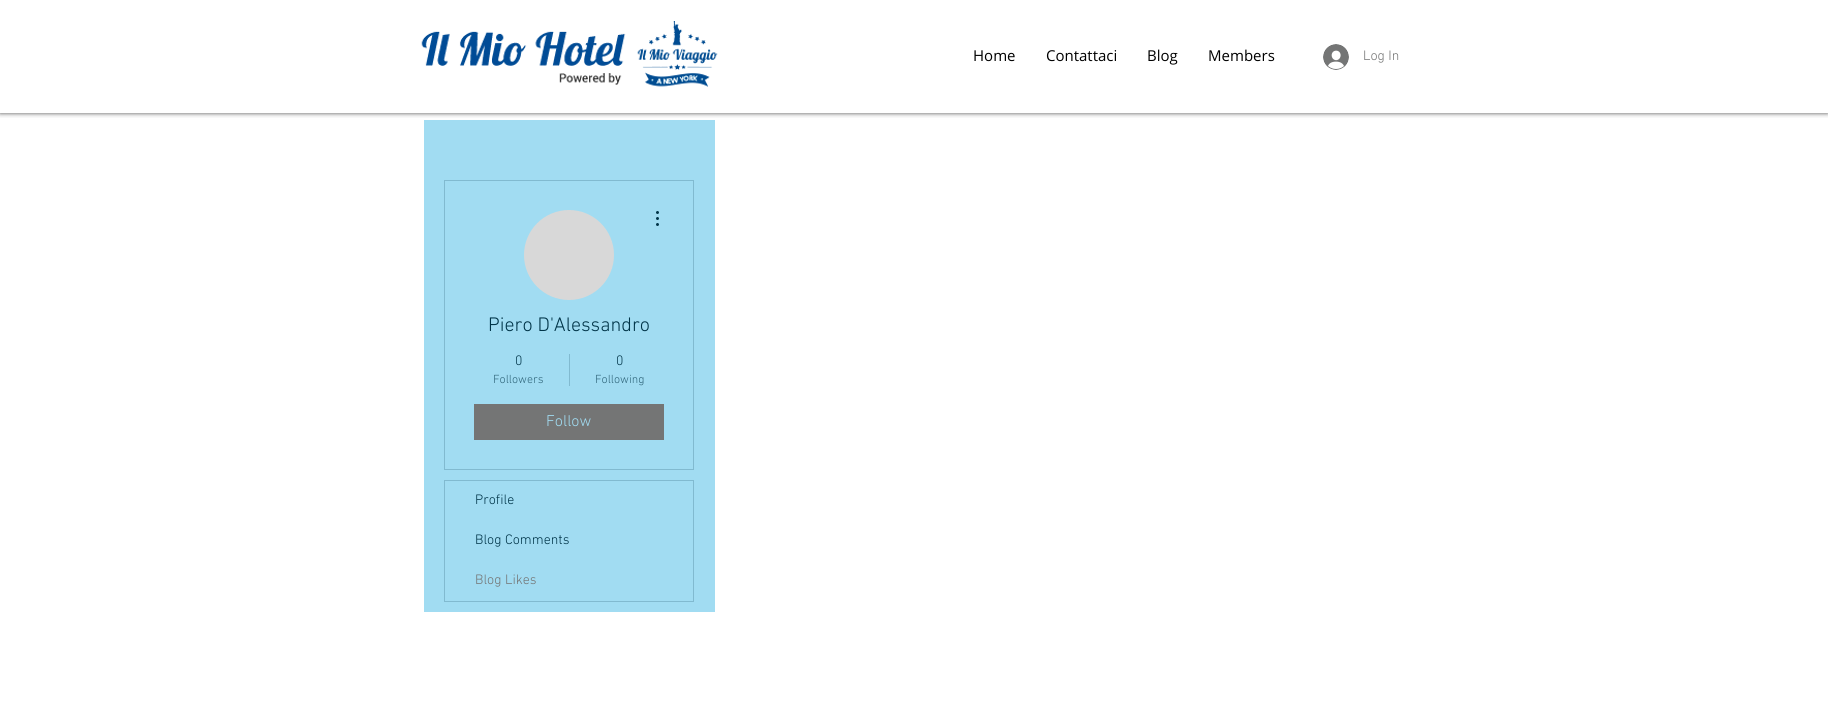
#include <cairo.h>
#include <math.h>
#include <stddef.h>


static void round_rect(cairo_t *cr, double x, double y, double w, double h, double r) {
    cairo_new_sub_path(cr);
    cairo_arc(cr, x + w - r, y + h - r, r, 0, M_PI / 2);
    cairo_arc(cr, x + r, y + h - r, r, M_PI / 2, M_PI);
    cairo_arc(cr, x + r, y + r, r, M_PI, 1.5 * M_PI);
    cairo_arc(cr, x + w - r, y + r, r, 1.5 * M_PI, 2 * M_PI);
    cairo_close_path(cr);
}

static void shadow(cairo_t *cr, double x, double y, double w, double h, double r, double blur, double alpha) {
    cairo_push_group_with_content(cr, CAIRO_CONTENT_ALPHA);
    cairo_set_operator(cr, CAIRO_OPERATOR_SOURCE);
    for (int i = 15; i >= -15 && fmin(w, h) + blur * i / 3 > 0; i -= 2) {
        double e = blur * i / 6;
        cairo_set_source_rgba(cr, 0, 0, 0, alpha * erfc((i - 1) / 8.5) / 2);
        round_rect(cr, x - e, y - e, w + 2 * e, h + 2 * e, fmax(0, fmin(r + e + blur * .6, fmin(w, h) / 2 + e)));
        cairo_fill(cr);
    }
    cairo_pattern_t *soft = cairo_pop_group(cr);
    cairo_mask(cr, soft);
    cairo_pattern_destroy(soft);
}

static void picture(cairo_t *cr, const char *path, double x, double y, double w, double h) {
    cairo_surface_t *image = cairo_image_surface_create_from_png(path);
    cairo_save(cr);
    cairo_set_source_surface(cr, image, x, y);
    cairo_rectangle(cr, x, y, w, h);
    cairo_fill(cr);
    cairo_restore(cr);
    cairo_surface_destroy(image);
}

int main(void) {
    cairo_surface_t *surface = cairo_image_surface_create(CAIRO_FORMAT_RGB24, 1828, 716);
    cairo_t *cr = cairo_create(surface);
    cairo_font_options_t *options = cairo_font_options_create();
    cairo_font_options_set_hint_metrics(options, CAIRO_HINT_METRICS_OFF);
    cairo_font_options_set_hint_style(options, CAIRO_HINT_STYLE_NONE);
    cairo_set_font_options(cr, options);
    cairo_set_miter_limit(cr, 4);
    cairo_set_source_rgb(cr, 1, 1, 1);
    cairo_paint(cr);
    cairo_save(cr);
    cairo_rectangle(cr, 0, 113, 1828, 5);
    cairo_clip(cr);
    cairo_set_source_rgb(cr, 0, 0, 0);
    shadow(cr, 0, 0, 1828, 113, 0, 2.5, 0.7);
    cairo_restore(cr);
    picture(cr, "img1.png", 421, 21, 297, 66);
    cairo_select_font_face(cr, "Open Sans", CAIRO_FONT_SLANT_NORMAL, CAIRO_FONT_WEIGHT_NORMAL);
    cairo_set_font_size(cr, 15);
    cairo_set_source_rgb(cr, 0, 0, 0);
    cairo_move_to(cr, 973, 61);
    cairo_show_text(cr, "Home");
    cairo_move_to(cr, 1046, 61);
    cairo_show_text(cr, "Contattaci");
    cairo_move_to(cr, 1147, 61);
    cairo_show_text(cr, "Blog");
    cairo_move_to(cr, 1208, 61);
    cairo_show_text(cr, "Members");
    picture(cr, "img2.png", 1323, 44, 26, 26);
    cairo_select_font_face(cr, "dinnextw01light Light", CAIRO_FONT_SLANT_NORMAL, CAIRO_FONT_WEIGHT_NORMAL);
    cairo_set_font_size(cr, 14);
    cairo_set_source_rgb(cr, 0.455, 0.459, 0.459);
    cairo_move_to(cr, 1363, 60);
    cairo_show_text(cr, "Log In");
    cairo_set_source_rgb(cr, 0.631, 0.863, 0.949);
    cairo_rectangle(cr, 424, 120, 291, 492);
    cairo_fill(cr);
    cairo_rectangle(cr, 444.5, 180.5, 249, 289);
    cairo_set_source_rgb(cr, 0.506, 0.729, 0.816);
    cairo_set_line_width(cr, 1);
    cairo_stroke(cr);
    cairo_set_source_rgb(cr, 0.847, 0.847, 0.847);
    cairo_arc(cr, 569, 255, 45, 0, 2 * M_PI);
    cairo_fill(cr);
    picture(cr, "img3.png", 656, 211, 3, 15);
    cairo_set_font_size(cr, 20);
    cairo_set_source_rgb(cr, 0, 0.204, 0.282);
    cairo_move_to(cr, 488, 331);
    cairo_show_text(cr, "Piero D'Alessandro");
    cairo_set_font_size(cr, 14);
    cairo_move_to(cr, 515, 365);
    cairo_show_text(cr, "0");
    cairo_set_font_size(cr, 12);
    cairo_set_source_rgb(cr, 0.188, 0.4, 0.482);
    cairo_move_to(cr, 493, 383);
    cairo_show_text(cr, "Followers");
    cairo_set_source_rgb(cr, 0.506, 0.729, 0.816);
    cairo_rectangle(cr, 569, 354, 1, 32);
    cairo_fill(cr);
    cairo_set_font_size(cr, 14);
    cairo_set_source_rgb(cr, 0, 0.204, 0.282);
    cairo_move_to(cr, 616, 365);
    cairo_show_text(cr, "0");
    cairo_set_font_size(cr, 12);
    cairo_set_source_rgb(cr, 0.188, 0.4, 0.482);
    cairo_move_to(cr, 595, 383);
    cairo_show_text(cr, "Following");
    cairo_set_source_rgb(cr, 0.455, 0.459, 0.459);
    cairo_rectangle(cr, 474, 404, 190, 36);
    cairo_fill(cr);
    cairo_set_font_size(cr, 16);
    cairo_set_source_rgb(cr, 0.631, 0.863, 0.949);
    cairo_move_to(cr, 546, 426);
    cairo_show_text(cr, "Follow");
    cairo_rectangle(cr, 444.5, 480.5, 249, 121);
    cairo_set_source_rgb(cr, 0.506, 0.729, 0.816);
    cairo_stroke(cr);
    cairo_set_font_size(cr, 14);
    cairo_set_source_rgb(cr, 0, 0.204, 0.282);
    cairo_move_to(cr, 475, 504);
    cairo_show_text(cr, "Profile");
    cairo_move_to(cr, 475, 544);
    cairo_show_text(cr, "Blog Comments");
    cairo_set_source_rgb(cr, 0.455, 0.459, 0.459);
    cairo_move_to(cr, 475, 584);
    cairo_show_text(cr, "Blog Likes");
    cairo_surface_write_to_png(surface, "page.png");
    cairo_font_options_destroy(options);
    cairo_destroy(cr);
    cairo_surface_destroy(surface);
    return 0;
}
